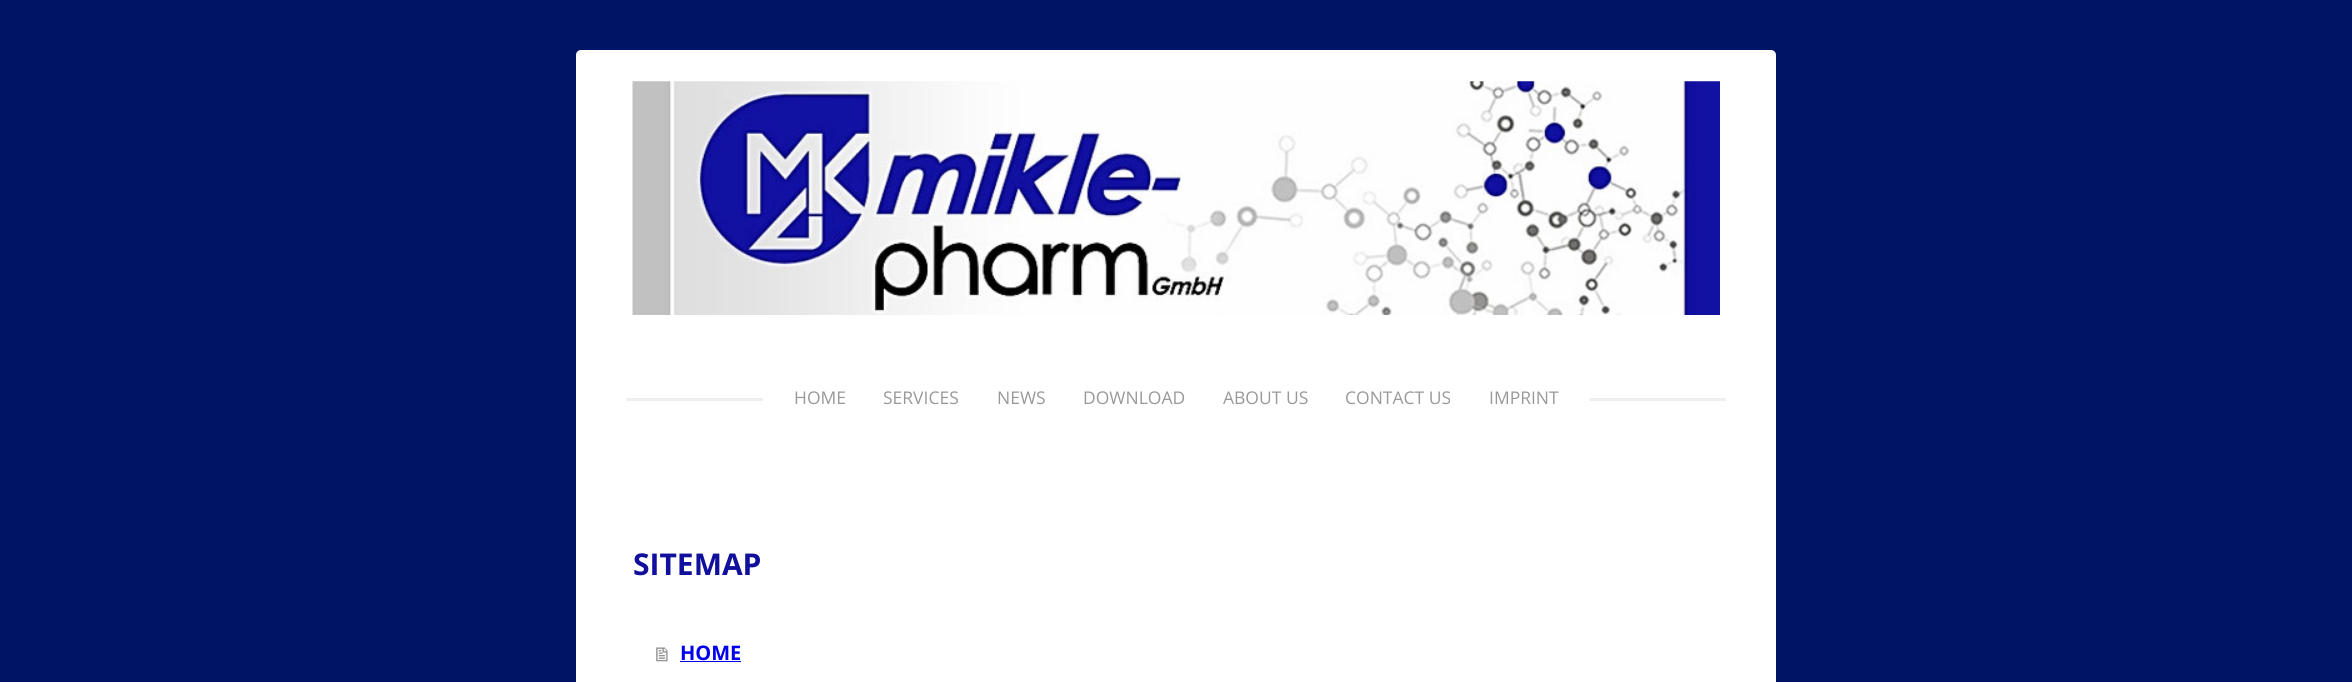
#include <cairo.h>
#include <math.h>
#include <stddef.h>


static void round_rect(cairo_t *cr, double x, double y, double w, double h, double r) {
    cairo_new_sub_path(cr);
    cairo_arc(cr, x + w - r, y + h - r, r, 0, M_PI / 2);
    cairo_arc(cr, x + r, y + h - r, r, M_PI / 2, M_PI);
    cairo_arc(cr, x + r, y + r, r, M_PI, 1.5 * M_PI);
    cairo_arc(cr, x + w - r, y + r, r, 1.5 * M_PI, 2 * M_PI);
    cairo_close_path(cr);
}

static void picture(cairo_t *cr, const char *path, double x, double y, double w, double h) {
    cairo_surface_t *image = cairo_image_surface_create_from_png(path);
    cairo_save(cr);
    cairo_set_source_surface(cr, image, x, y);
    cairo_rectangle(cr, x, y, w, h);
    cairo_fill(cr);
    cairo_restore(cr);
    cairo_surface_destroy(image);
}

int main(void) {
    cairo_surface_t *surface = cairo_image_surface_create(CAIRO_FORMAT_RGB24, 2352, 682);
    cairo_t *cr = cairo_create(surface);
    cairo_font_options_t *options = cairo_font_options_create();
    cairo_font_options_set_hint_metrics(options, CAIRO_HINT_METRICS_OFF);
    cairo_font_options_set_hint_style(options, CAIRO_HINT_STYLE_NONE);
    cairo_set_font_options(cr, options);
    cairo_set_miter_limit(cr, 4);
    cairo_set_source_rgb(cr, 0, 0.082, 0.396);
    cairo_paint(cr);
    cairo_set_source_rgb(cr, 1, 1, 1);
    round_rect(cr, 576, 50, 1200, 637, 5);
    cairo_fill(cr);
    picture(cr, "img1.png", 632, 81, 1088, 234);
    cairo_set_source_rgb(cr, 0.933, 0.933, 0.933);
    cairo_rectangle(cr, 626, 398, 1100, 3);
    cairo_fill(cr);
    cairo_set_source_rgb(cr, 1, 1, 1);
    cairo_rectangle(cr, 763, 398, 827, 3);
    cairo_fill(cr);
    cairo_select_font_face(cr, "Open Sans", CAIRO_FONT_SLANT_NORMAL, CAIRO_FONT_WEIGHT_NORMAL);
    cairo_set_font_size(cr, 17.5);
    cairo_set_source_rgb(cr, 0.6, 0.6, 0.6);
    cairo_move_to(cr, 794, 404);
    cairo_show_text(cr, "HOME");
    cairo_move_to(cr, 883, 404);
    cairo_show_text(cr, "SERVICES");
    cairo_move_to(cr, 997, 404);
    cairo_show_text(cr, "NEWS");
    cairo_move_to(cr, 1083, 404);
    cairo_show_text(cr, "DOWNLOAD");
    cairo_move_to(cr, 1223, 404);
    cairo_show_text(cr, "ABOUT US");
    cairo_move_to(cr, 1345, 404);
    cairo_show_text(cr, "CONTACT US");
    cairo_move_to(cr, 1489, 404);
    cairo_show_text(cr, "IMPRINT");
    cairo_select_font_face(cr, "Open Sans", CAIRO_FONT_SLANT_NORMAL, CAIRO_FONT_WEIGHT_BOLD);
    cairo_set_font_size(cr, 30);
    cairo_set_source_rgb(cr, 0.067, 0.063, 0.612);
    cairo_move_to(cr, 633, 575);
    cairo_show_text(cr, "SITEMAP");
    picture(cr, "img2.png", 656, 647, 12, 15);
    cairo_set_font_size(cr, 20);
    cairo_set_source_rgb(cr, 0, 0, 0.933);
    cairo_move_to(cr, 680, 660);
    cairo_show_text(cr, "HOME");
    cairo_rectangle(cr, 680, 661, 61, 1);
    cairo_fill(cr);
    cairo_surface_write_to_png(surface, "page.png");
    cairo_font_options_destroy(options);
    cairo_destroy(cr);
    cairo_surface_destroy(surface);
    return 0;
}
